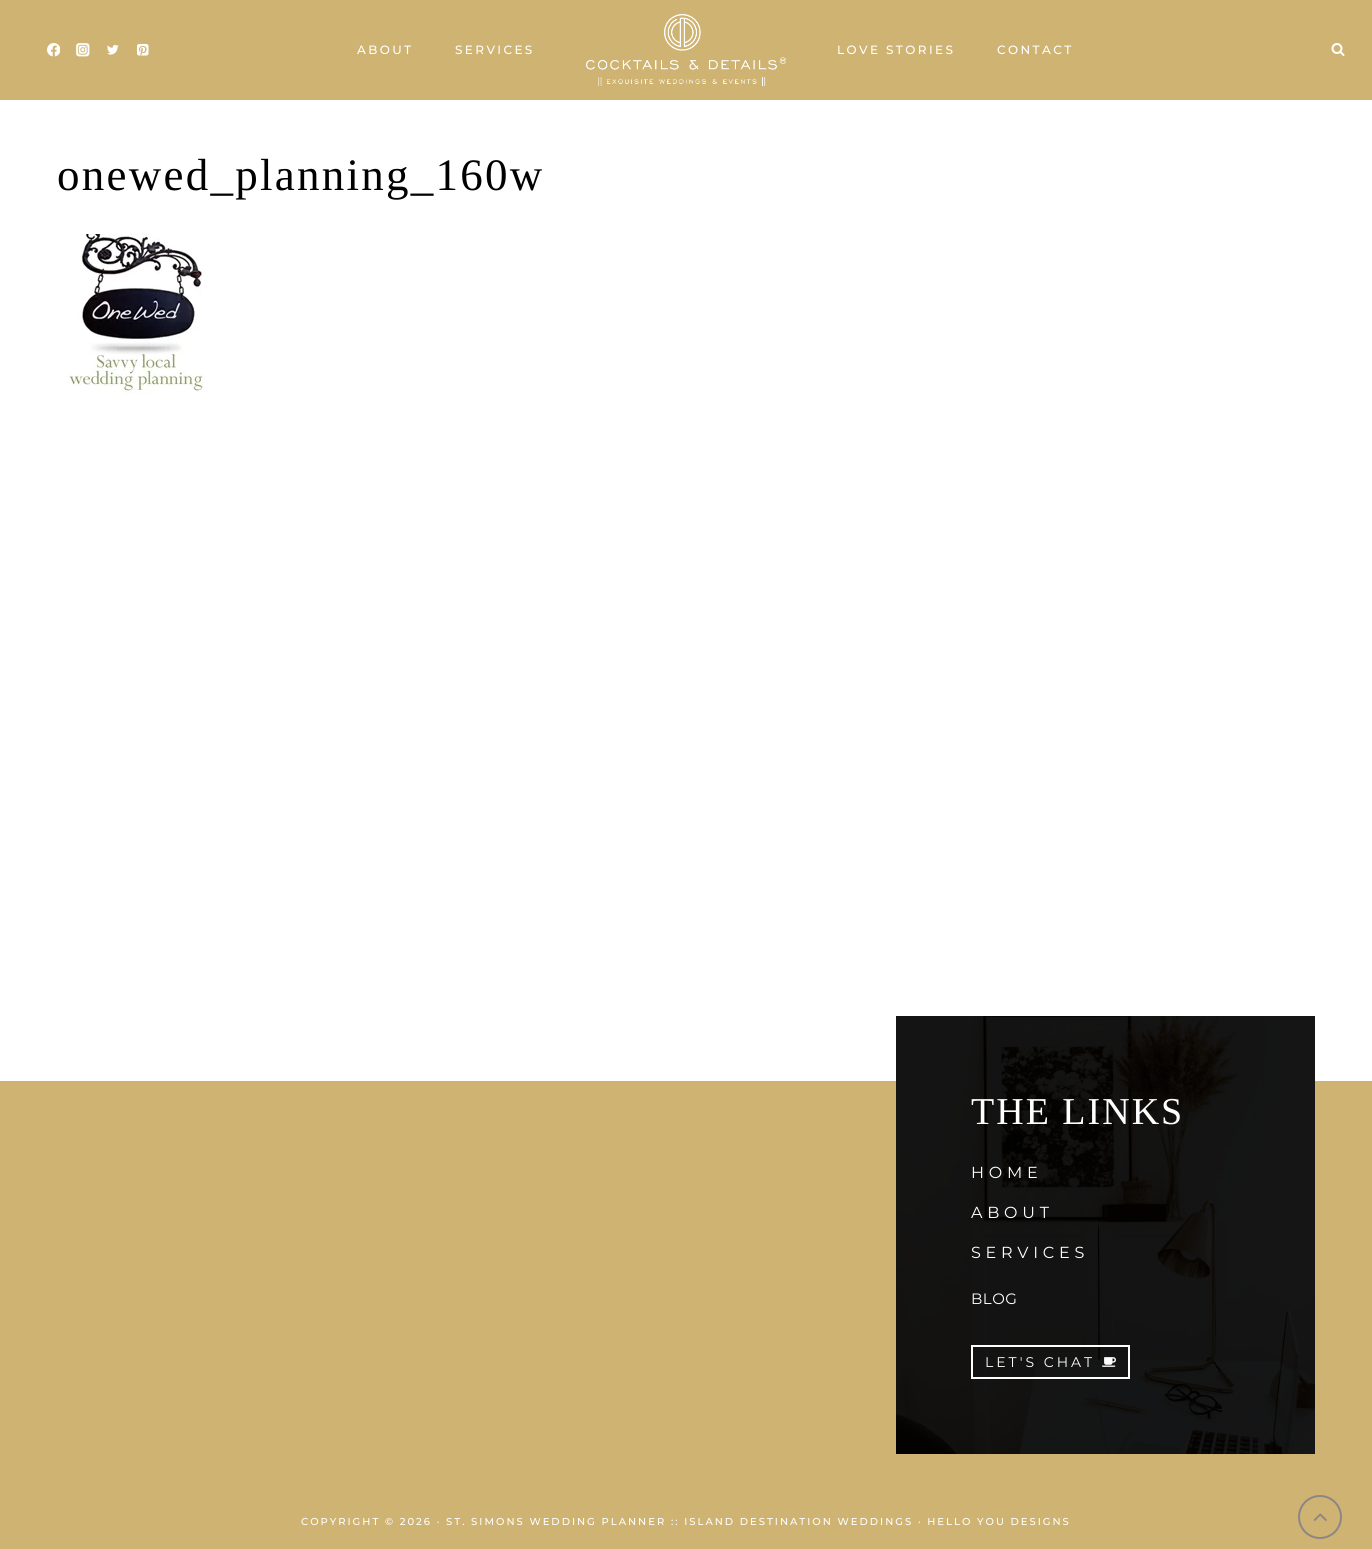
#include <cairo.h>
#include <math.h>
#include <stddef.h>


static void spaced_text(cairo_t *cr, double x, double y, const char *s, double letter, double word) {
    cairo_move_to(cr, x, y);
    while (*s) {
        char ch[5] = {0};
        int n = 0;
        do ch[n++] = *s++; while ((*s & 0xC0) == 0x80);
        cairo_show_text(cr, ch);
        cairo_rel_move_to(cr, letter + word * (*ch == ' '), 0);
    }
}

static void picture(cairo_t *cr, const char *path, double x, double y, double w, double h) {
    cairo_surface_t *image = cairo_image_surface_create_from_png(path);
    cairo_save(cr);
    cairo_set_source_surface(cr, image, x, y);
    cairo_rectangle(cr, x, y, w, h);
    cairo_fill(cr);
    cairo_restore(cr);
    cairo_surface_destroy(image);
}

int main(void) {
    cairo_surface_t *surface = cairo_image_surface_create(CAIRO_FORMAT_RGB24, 1372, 1549);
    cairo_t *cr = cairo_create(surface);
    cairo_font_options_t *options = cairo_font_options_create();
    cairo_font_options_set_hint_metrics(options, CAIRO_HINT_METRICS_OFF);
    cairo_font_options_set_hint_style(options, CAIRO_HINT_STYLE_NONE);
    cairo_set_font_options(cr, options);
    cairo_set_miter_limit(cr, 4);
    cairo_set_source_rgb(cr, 1, 1, 1);
    cairo_paint(cr);
    cairo_set_source_rgb(cr, 0.812, 0.702, 0.447);
    cairo_rectangle(cr, 0, 0, 1372, 100);
    cairo_fill(cr);
    picture(cr, "img1.png", 47, 43, 13, 14);
    picture(cr, "img2.png", 76, 43, 14, 14);
    picture(cr, "img3.png", 107, 45, 12, 10);
    picture(cr, "img4.png", 136, 43, 13, 13);
    cairo_select_font_face(cr, "Montserrat Medium", CAIRO_FONT_SLANT_NORMAL, CAIRO_FONT_WEIGHT_NORMAL);
    cairo_set_font_size(cr, 12);
    cairo_set_source_rgb(cr, 1, 1, 1);
    spaced_text(cr, 357, 54, "ABOUT", 2.4, 0);
    spaced_text(cr, 455, 54, "SERVICES", 2.4, 0);
    picture(cr, "img5.png", 586, 13, 200, 74);
    spaced_text(cr, 837, 54, "LOVE STORIES", 2.4, 0);
    spaced_text(cr, 997, 54, "CONTACT", 2.4, 0);
    picture(cr, "img6.png", 1331, 43, 14, 13);
    cairo_select_font_face(cr, "Liberation Serif", CAIRO_FONT_SLANT_NORMAL, CAIRO_FONT_WEIGHT_NORMAL);
    cairo_set_font_size(cr, 45);
    cairo_set_source_rgb(cr, 0, 0, 0);
    spaced_text(cr, 57, 190, "onewed_planning_160w", 2.25, 0);
    picture(cr, "img7.png", 68, 234, 137, 160);
    cairo_set_source_rgb(cr, 0.812, 0.702, 0.447);
    cairo_rectangle(cr, 0, 1081, 1372, 468);
    cairo_fill(cr);
    picture(cr, "img8.png", 896, 1016, 419, 438);
    cairo_set_font_size(cr, 38);
    cairo_set_source_rgb(cr, 1, 1, 1);
    spaced_text(cr, 971, 1124, "THE LINKS", 2, 0);
    cairo_select_font_face(cr, "Montserrat Thin", CAIRO_FONT_SLANT_NORMAL, CAIRO_FONT_WEIGHT_NORMAL);
    cairo_set_font_size(cr, 16);
    spaced_text(cr, 971, 1178, "HOME", 4.75, 0);
    spaced_text(cr, 971, 1218, "ABOUT", 4.75, 0);
    spaced_text(cr, 971, 1258, "SERVICES", 4.75, 0);
    cairo_set_font_size(cr, 15);
    spaced_text(cr, 971, 1304, "BLOG", 0.5, 0);
    cairo_rectangle(cr, 972, 1346, 157, 32);
    cairo_stroke(cr);
    cairo_set_font_size(cr, 14);
    spaced_text(cr, 985, 1367, "LET'S CHAT", 3, 0);
    picture(cr, "img9.png", 1102, 1357, 14, 10);
    cairo_select_font_face(cr, "Montserrat Medium", CAIRO_FONT_SLANT_NORMAL, CAIRO_FONT_WEIGHT_NORMAL);
    cairo_set_font_size(cr, 10);
    spaced_text(cr, 301, 1525, "COPYRIGHT © 2026 · ST. SIMONS WEDDING PLANNER :: ISLAND DESTINATION WEDDINGS · HELLO YOU DESIGNS", 2, 0);
    cairo_new_path(cr);
    cairo_arc(cr, 1320, 1517, 21, 0, 2 * M_PI);
    cairo_set_source_rgb(cr, 0.553, 0.525, 0.525);
    cairo_stroke(cr);
    picture(cr, "img10.png", 1313, 1513, 14, 8);
    cairo_surface_write_to_png(surface, "page.png");
    cairo_font_options_destroy(options);
    cairo_destroy(cr);
    cairo_surface_destroy(surface);
    return 0;
}
